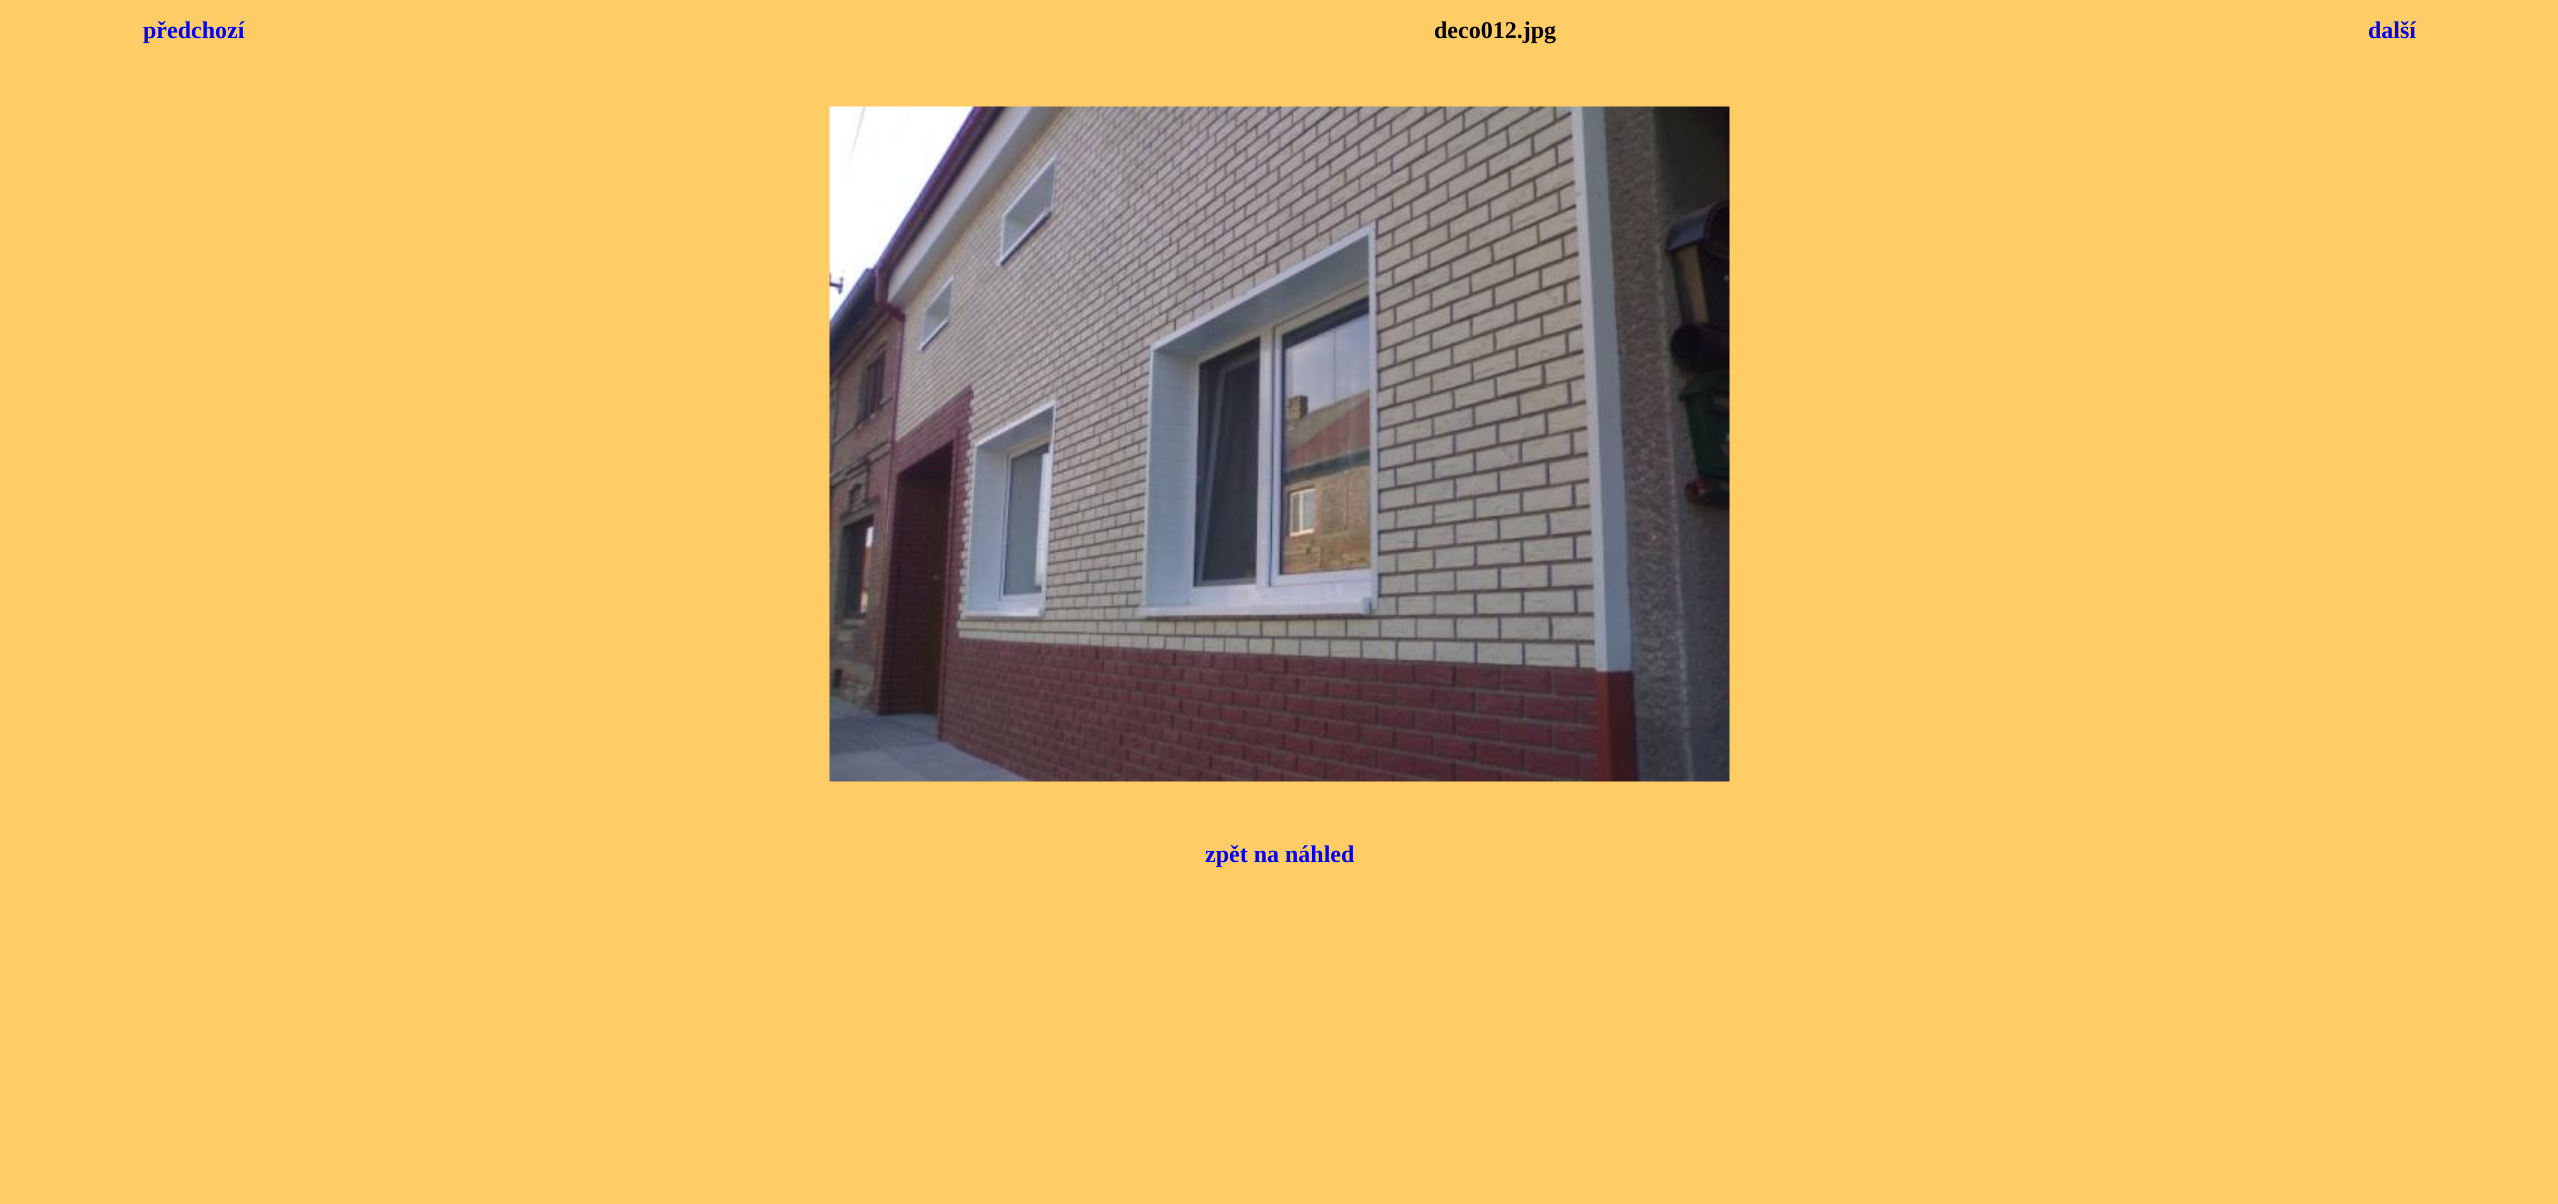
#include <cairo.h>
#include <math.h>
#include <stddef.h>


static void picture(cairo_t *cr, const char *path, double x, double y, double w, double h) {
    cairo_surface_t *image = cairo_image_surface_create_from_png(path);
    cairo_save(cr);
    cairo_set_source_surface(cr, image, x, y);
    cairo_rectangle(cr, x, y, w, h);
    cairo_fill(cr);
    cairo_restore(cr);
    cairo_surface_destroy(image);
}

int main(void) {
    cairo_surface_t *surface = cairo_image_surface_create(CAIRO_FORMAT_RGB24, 2558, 1204);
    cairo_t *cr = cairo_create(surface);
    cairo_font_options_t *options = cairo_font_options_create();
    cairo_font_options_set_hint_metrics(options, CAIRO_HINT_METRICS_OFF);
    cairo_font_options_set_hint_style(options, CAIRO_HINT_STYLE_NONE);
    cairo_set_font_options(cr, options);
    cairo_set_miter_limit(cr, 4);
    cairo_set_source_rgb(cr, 1, 0.8, 0.4);
    cairo_paint(cr);
    cairo_select_font_face(cr, "Liberation Serif", CAIRO_FONT_SLANT_NORMAL, CAIRO_FONT_WEIGHT_BOLD);
    cairo_set_font_size(cr, 24);
    cairo_set_source_rgb(cr, 0, 0, 0.933);
    cairo_move_to(cr, 143, 38);
    cairo_show_text(cr, "předchozí");
    cairo_set_source_rgb(cr, 0, 0, 0);
    cairo_move_to(cr, 1434, 38);
    cairo_show_text(cr, "deco012.jpg");
    cairo_set_source_rgb(cr, 0, 0, 0.933);
    cairo_move_to(cr, 2368, 38);
    cairo_show_text(cr, "další");
    picture(cr, "img1.png", 829, 106, 901, 676);
    cairo_move_to(cr, 1205, 862);
    cairo_show_text(cr, "zpět na náhled");
    cairo_surface_write_to_png(surface, "page.png");
    cairo_font_options_destroy(options);
    cairo_destroy(cr);
    cairo_surface_destroy(surface);
    return 0;
}
